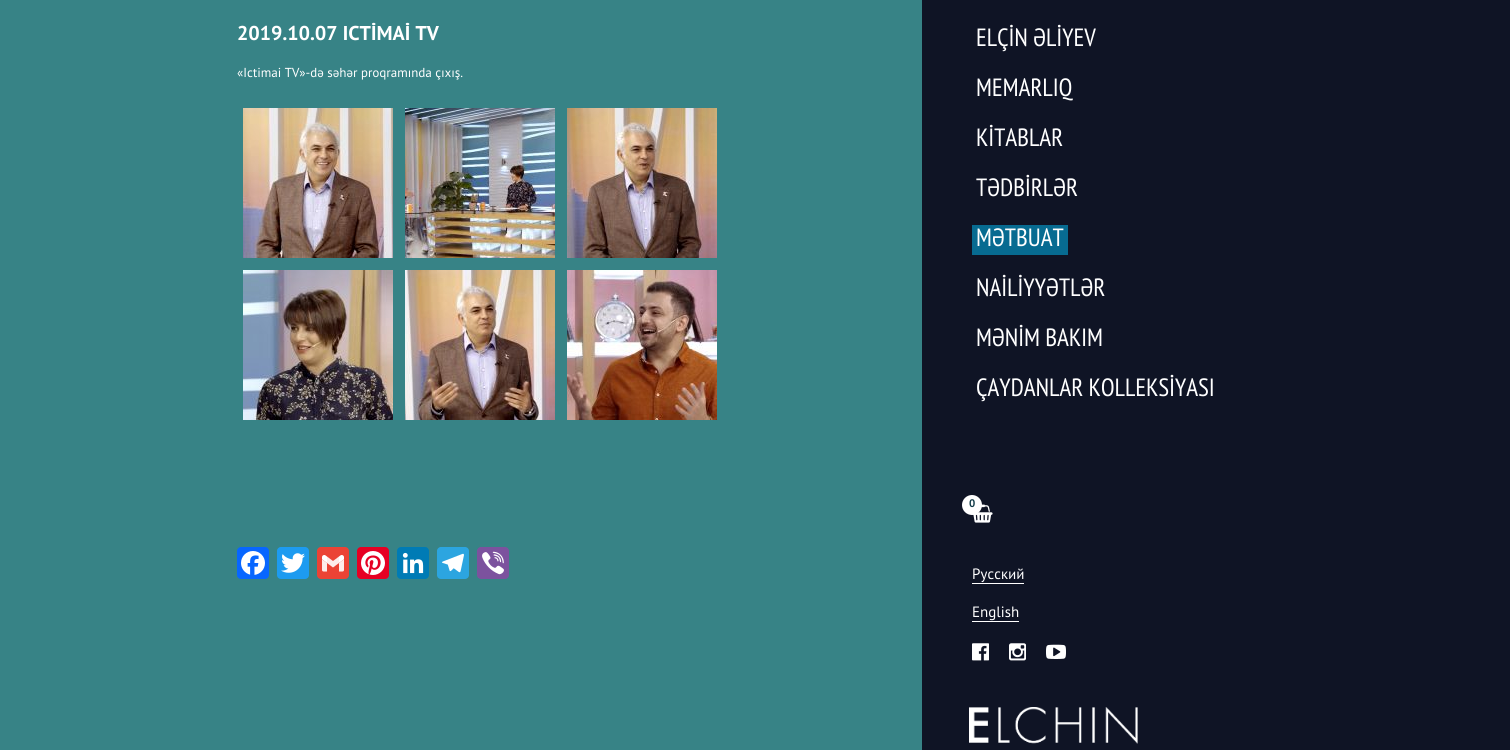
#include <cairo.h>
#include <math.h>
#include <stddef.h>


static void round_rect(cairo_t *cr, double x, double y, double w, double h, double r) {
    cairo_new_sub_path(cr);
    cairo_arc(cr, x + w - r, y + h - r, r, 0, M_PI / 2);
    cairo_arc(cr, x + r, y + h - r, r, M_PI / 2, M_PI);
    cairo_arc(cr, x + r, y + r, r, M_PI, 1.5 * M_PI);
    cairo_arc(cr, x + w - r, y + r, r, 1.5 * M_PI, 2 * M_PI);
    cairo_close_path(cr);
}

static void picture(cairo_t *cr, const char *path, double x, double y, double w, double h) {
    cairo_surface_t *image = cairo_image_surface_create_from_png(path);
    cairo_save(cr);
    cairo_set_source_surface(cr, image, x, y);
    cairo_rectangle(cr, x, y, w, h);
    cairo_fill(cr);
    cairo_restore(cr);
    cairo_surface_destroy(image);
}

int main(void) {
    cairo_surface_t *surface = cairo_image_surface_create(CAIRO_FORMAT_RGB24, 1510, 750);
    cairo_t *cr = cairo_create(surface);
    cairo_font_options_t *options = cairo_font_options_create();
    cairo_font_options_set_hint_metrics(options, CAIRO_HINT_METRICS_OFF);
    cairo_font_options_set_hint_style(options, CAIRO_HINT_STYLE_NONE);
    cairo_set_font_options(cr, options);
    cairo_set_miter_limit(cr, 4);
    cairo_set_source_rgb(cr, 0.059, 0.082, 0.145);
    cairo_paint(cr);
    cairo_set_source_rgb(cr, 0.216, 0.514, 0.525);
    cairo_rectangle(cr, 0, 0, 922, 750);
    cairo_fill(cr);
    picture(cr, "img1.png", 238, 22, 201, 19);
    picture(cr, "img2.png", 237, 67, 226, 13);
    picture(cr, "img3.png", 243, 108, 150, 150);
    picture(cr, "img4.png", 405, 108, 150, 150);
    picture(cr, "img5.png", 567, 108, 150, 150);
    picture(cr, "img6.png", 243, 270, 150, 150);
    picture(cr, "img7.png", 405, 270, 150, 150);
    picture(cr, "img8.png", 567, 270, 150, 150);
    cairo_set_source_rgb(cr, 0.031, 0.4, 1);
    round_rect(cr, 237, 547, 32, 32, 4);
    cairo_fill(cr);
    picture(cr, "img9.png", 241, 551, 24, 24);
    cairo_set_source_rgb(cr, 0.114, 0.608, 0.941);
    round_rect(cr, 277, 547, 32, 32, 4);
    cairo_fill(cr);
    picture(cr, "img10.png", 281, 553, 24, 20);
    cairo_set_source_rgb(cr, 0.918, 0.263, 0.208);
    round_rect(cr, 317, 547, 32, 32, 4);
    cairo_fill(cr);
    picture(cr, "img11.png", 322, 555, 22, 17);
    cairo_set_source_rgb(cr, 0.902, 0, 0.137);
    round_rect(cr, 357, 547, 32, 32, 4);
    cairo_fill(cr);
    picture(cr, "img12.png", 361, 551, 24, 24);
    cairo_set_source_rgb(cr, 0, 0.482, 0.71);
    round_rect(cr, 397, 547, 32, 32, 4);
    cairo_fill(cr);
    picture(cr, "img13.png", 402, 552, 22, 22);
    cairo_set_source_rgb(cr, 0.173, 0.647, 0.878);
    round_rect(cr, 437, 547, 32, 32, 4);
    cairo_fill(cr);
    picture(cr, "img14.png", 442, 553, 22, 20);
    cairo_set_source_rgb(cr, 0.486, 0.322, 0.62);
    round_rect(cr, 477, 547, 32, 32, 4);
    cairo_fill(cr);
    picture(cr, "img15.png", 482, 551, 22, 24);
    picture(cr, "img16.png", 977, 24, 119, 28);
    picture(cr, "img17.png", 977, 78, 96, 23);
    picture(cr, "img18.png", 977, 124, 86, 23);
    picture(cr, "img19.png", 976, 174, 102, 23);
    cairo_set_source_rgb(cr, 0.031, 0.42, 0.569);
    cairo_rectangle(cr, 972, 225, 96, 30);
    cairo_fill(cr);
    picture(cr, "img20.png", 977, 228, 87, 19);
    picture(cr, "img21.png", 977, 274, 128, 23);
    picture(cr, "img22.png", 977, 324, 125, 23);
    picture(cr, "img23.png", 977, 374, 236, 28);
    picture(cr, "img25.png", 972, 504, 21, 19);
    cairo_set_source_rgb(cr, 1, 1, 1);
    cairo_arc(cr, 972, 505, 10, 0, 2 * M_PI);
    cairo_fill(cr);
    picture(cr, "img24.png", 969, 499, 6, 9);
    picture(cr, "img26.png", 973, 568, 51, 15);
    cairo_rectangle(cr, 972, 583, 52, 1);
    cairo_fill(cr);
    picture(cr, "img27.png", 973, 606, 46, 15);
    cairo_rectangle(cr, 972, 621, 47, 1);
    cairo_fill(cr);
    picture(cr, "img28.png", 972, 643, 17, 18);
    picture(cr, "img29.png", 1009, 643, 17, 18);
    picture(cr, "img30.png", 1046, 644, 20, 15);
    picture(cr, "img31.png", 969, 707, 169, 37);
    cairo_surface_write_to_png(surface, "page.png");
    cairo_font_options_destroy(options);
    cairo_destroy(cr);
    cairo_surface_destroy(surface);
    return 0;
}
